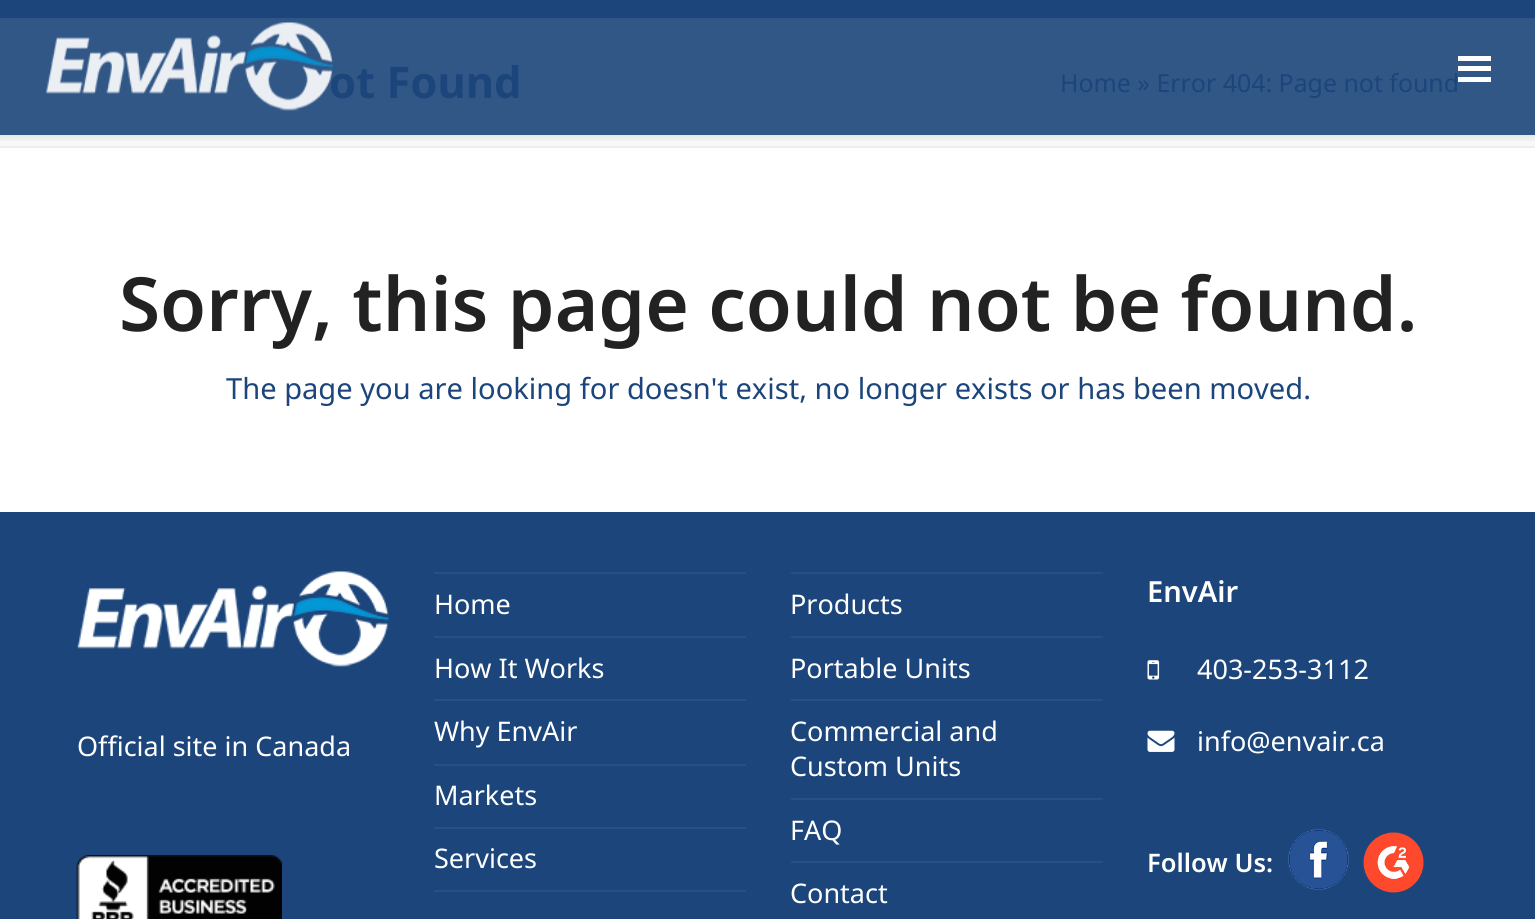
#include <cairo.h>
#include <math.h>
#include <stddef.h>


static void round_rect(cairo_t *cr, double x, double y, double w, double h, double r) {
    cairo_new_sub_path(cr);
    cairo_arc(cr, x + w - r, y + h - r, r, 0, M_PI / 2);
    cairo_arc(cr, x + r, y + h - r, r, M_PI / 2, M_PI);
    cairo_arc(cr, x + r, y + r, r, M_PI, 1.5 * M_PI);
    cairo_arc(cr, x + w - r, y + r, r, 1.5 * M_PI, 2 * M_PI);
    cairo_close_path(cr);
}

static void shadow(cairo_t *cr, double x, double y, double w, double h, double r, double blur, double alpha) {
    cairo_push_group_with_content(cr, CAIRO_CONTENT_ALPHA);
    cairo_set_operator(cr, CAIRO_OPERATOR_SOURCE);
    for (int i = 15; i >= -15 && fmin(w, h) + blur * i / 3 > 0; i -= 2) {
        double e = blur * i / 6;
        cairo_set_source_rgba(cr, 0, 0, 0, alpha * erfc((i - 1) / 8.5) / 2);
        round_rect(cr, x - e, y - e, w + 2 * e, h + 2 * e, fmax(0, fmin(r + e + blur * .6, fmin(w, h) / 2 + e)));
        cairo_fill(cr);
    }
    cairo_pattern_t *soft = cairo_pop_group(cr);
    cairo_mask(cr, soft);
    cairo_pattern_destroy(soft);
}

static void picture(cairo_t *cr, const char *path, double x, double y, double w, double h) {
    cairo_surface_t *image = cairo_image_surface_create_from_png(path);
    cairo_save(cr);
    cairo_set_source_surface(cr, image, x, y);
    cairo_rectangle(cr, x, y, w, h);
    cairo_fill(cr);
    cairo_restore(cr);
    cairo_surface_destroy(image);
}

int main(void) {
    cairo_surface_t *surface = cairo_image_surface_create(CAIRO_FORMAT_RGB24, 1535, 919);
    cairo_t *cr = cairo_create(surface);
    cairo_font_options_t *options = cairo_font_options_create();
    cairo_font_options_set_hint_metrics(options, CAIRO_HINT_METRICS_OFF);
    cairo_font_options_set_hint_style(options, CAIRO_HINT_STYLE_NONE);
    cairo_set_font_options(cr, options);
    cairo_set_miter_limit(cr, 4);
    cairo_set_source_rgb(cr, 1, 1, 1);
    cairo_paint(cr);
    cairo_set_source_rgb(cr, 0.106, 0.271, 0.482);
    cairo_rectangle(cr, 0, 0, 1535, 18);
    cairo_fill(cr);
    cairo_set_source_rgb(cr, 0.969, 0.969, 0.969);
    cairo_rectangle(cr, 0, 135, 1535, 11);
    cairo_fill(cr);
    cairo_set_source_rgb(cr, 0.192, 0.341, 0.529);
    cairo_rectangle(cr, 0, 20, 1535, 115);
    cairo_fill(cr);
    cairo_set_source_rgb(cr, 0.188, 0.337, 0.529);
    cairo_rectangle(cr, 0, 18, 1535, 2);
    cairo_fill(cr);
    cairo_set_source_rgb(cr, 0.933, 0.933, 0.933);
    cairo_rectangle(cr, 0, 146, 1535, 2);
    cairo_fill(cr);
    cairo_save(cr);
    cairo_rectangle(cr, 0, 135, 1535, 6);
    cairo_clip(cr);
    cairo_set_source_rgb(cr, 0.098, 0.098, 0.098);
    shadow(cr, 0, 3, 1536, 135, 0, 4, 0.1);
    cairo_restore(cr);
    cairo_select_font_face(cr, "Noto Sans", CAIRO_FONT_SLANT_NORMAL, CAIRO_FONT_WEIGHT_BOLD);
    cairo_set_font_size(cr, 43.5);
    cairo_set_source_rgb(cr, 0.106, 0.271, 0.482);
    cairo_move_to(cr, 329, 98);
    cairo_show_text(cr, "ot Found");
    picture(cr, "img1.png", 46, 22, 287, 89);
    cairo_set_source_rgb(cr, 0.996, 0.996, 0.996);
    cairo_rectangle(cr, 1458, 66, 33, 5);
    cairo_fill(cr);
    cairo_rectangle(cr, 1458, 56, 33, 5);
    cairo_fill(cr);
    cairo_rectangle(cr, 1458, 77, 33, 5);
    cairo_fill(cr);
    cairo_select_font_face(cr, "Noto Sans", CAIRO_FONT_SLANT_NORMAL, CAIRO_FONT_WEIGHT_NORMAL);
    cairo_set_font_size(cr, 24.9);
    cairo_set_source_rgb(cr, 0.106, 0.271, 0.482);
    cairo_move_to(cr, 1060, 92);
    cairo_show_text(cr, "Home » Error 404: Page not found");
    cairo_select_font_face(cr, "Noto Sans SemiBold", CAIRO_FONT_SLANT_NORMAL, CAIRO_FONT_WEIGHT_NORMAL);
    cairo_set_font_size(cr, 74.75);
    cairo_set_source_rgb(cr, 0.133, 0.133, 0.133);
    cairo_move_to(cr, 119, 331);
    cairo_show_text(cr, "Sorry, this page could not be found.");
    cairo_select_font_face(cr, "Noto Sans", CAIRO_FONT_SLANT_NORMAL, CAIRO_FONT_WEIGHT_NORMAL);
    cairo_set_font_size(cr, 29.1);
    cairo_set_source_rgb(cr, 0.106, 0.271, 0.482);
    cairo_move_to(cr, 226, 399);
    cairo_show_text(cr, "The page you are looking for doesn't exist, no longer exists or has been moved.");
    cairo_rectangle(cr, 0, 512, 1535, 407);
    cairo_fill(cr);
    picture(cr, "img2.png", 77, 571, 312, 96);
    cairo_set_font_size(cr, 27);
    cairo_set_source_rgb(cr, 1, 1, 1);
    cairo_move_to(cr, 77, 756);
    cairo_show_text(cr, "Official site in Canada");
    picture(cr, "img3.png", 76, 855, 206, 64);
    cairo_set_source_rgb(cr, 0.161, 0.314, 0.514);
    cairo_rectangle(cr, 434, 572, 312, 2);
    cairo_fill(cr);
    cairo_rectangle(cr, 434, 636, 312, 2);
    cairo_fill(cr);
    cairo_set_source_rgb(cr, 1, 1, 1);
    cairo_move_to(cr, 434, 614);
    cairo_show_text(cr, "Home");
    cairo_set_source_rgb(cr, 0.161, 0.314, 0.514);
    cairo_rectangle(cr, 434, 699, 312, 2);
    cairo_fill(cr);
    cairo_set_source_rgb(cr, 1, 1, 1);
    cairo_move_to(cr, 434, 678);
    cairo_show_text(cr, "How It Works");
    cairo_set_source_rgb(cr, 0.161, 0.314, 0.514);
    cairo_rectangle(cr, 434, 764, 312, 2);
    cairo_fill(cr);
    cairo_set_source_rgb(cr, 1, 1, 1);
    cairo_move_to(cr, 434, 741);
    cairo_show_text(cr, "Why EnvAir");
    cairo_set_source_rgb(cr, 0.161, 0.314, 0.514);
    cairo_rectangle(cr, 434, 827, 312, 2);
    cairo_fill(cr);
    cairo_set_source_rgb(cr, 1, 1, 1);
    cairo_move_to(cr, 434, 805);
    cairo_show_text(cr, "Markets");
    cairo_set_source_rgb(cr, 0.161, 0.314, 0.514);
    cairo_rectangle(cr, 434, 890, 312, 2);
    cairo_fill(cr);
    cairo_set_source_rgb(cr, 1, 1, 1);
    cairo_move_to(cr, 434, 868);
    cairo_show_text(cr, "Services");
    cairo_set_source_rgb(cr, 0.161, 0.314, 0.514);
    cairo_rectangle(cr, 791, 572, 312, 2);
    cairo_fill(cr);
    cairo_rectangle(cr, 791, 636, 312, 2);
    cairo_fill(cr);
    cairo_set_source_rgb(cr, 1, 1, 1);
    cairo_move_to(cr, 790, 614);
    cairo_show_text(cr, "Products");
    cairo_set_source_rgb(cr, 0.161, 0.314, 0.514);
    cairo_rectangle(cr, 791, 699, 312, 2);
    cairo_fill(cr);
    cairo_set_source_rgb(cr, 1, 1, 1);
    cairo_move_to(cr, 790, 678);
    cairo_show_text(cr, "Portable Units");
    cairo_set_source_rgb(cr, 0.161, 0.314, 0.514);
    cairo_rectangle(cr, 791, 798, 312, 2);
    cairo_fill(cr);
    cairo_set_source_rgb(cr, 1, 1, 1);
    cairo_move_to(cr, 790, 741);
    cairo_show_text(cr, "Commercial and");
    cairo_move_to(cr, 790, 776);
    cairo_show_text(cr, "Custom Units");
    cairo_set_source_rgb(cr, 0.161, 0.314, 0.514);
    cairo_rectangle(cr, 791, 861, 312, 2);
    cairo_fill(cr);
    cairo_set_source_rgb(cr, 1, 1, 1);
    cairo_move_to(cr, 790, 840);
    cairo_show_text(cr, "FAQ");
    cairo_move_to(cr, 790, 903);
    cairo_show_text(cr, "Contact");
    cairo_select_font_face(cr, "Noto Sans SemiBold", CAIRO_FONT_SLANT_NORMAL, CAIRO_FONT_WEIGHT_NORMAL);
    cairo_set_font_size(cr, 29.1);
    cairo_move_to(cr, 1147, 602);
    cairo_show_text(cr, "EnvAir");
    picture(cr, "img4.png", 1147, 660, 13, 20);
    cairo_select_font_face(cr, "Noto Sans", CAIRO_FONT_SLANT_NORMAL, CAIRO_FONT_WEIGHT_NORMAL);
    cairo_set_font_size(cr, 27);
    cairo_move_to(cr, 1197, 679);
    cairo_show_text(cr, "403-253-3112");
    picture(cr, "img5.png", 1147, 730, 28, 22);
    cairo_move_to(cr, 1197, 751);
    cairo_show_text(cr, "info@envair.ca");
    cairo_select_font_face(cr, "Noto Sans SemiBold", CAIRO_FONT_SLANT_NORMAL, CAIRO_FONT_WEIGHT_NORMAL);
    cairo_set_font_size(cr, 25.5);
    cairo_move_to(cr, 1147, 872);
    cairo_show_text(cr, "Follow Us:");
    picture(cr, "img6.png", 1288, 829, 61, 61);
    picture(cr, "img7.png", 1363, 832, 61, 61);
    cairo_surface_write_to_png(surface, "page.png");
    cairo_font_options_destroy(options);
    cairo_destroy(cr);
    cairo_surface_destroy(surface);
    return 0;
}
